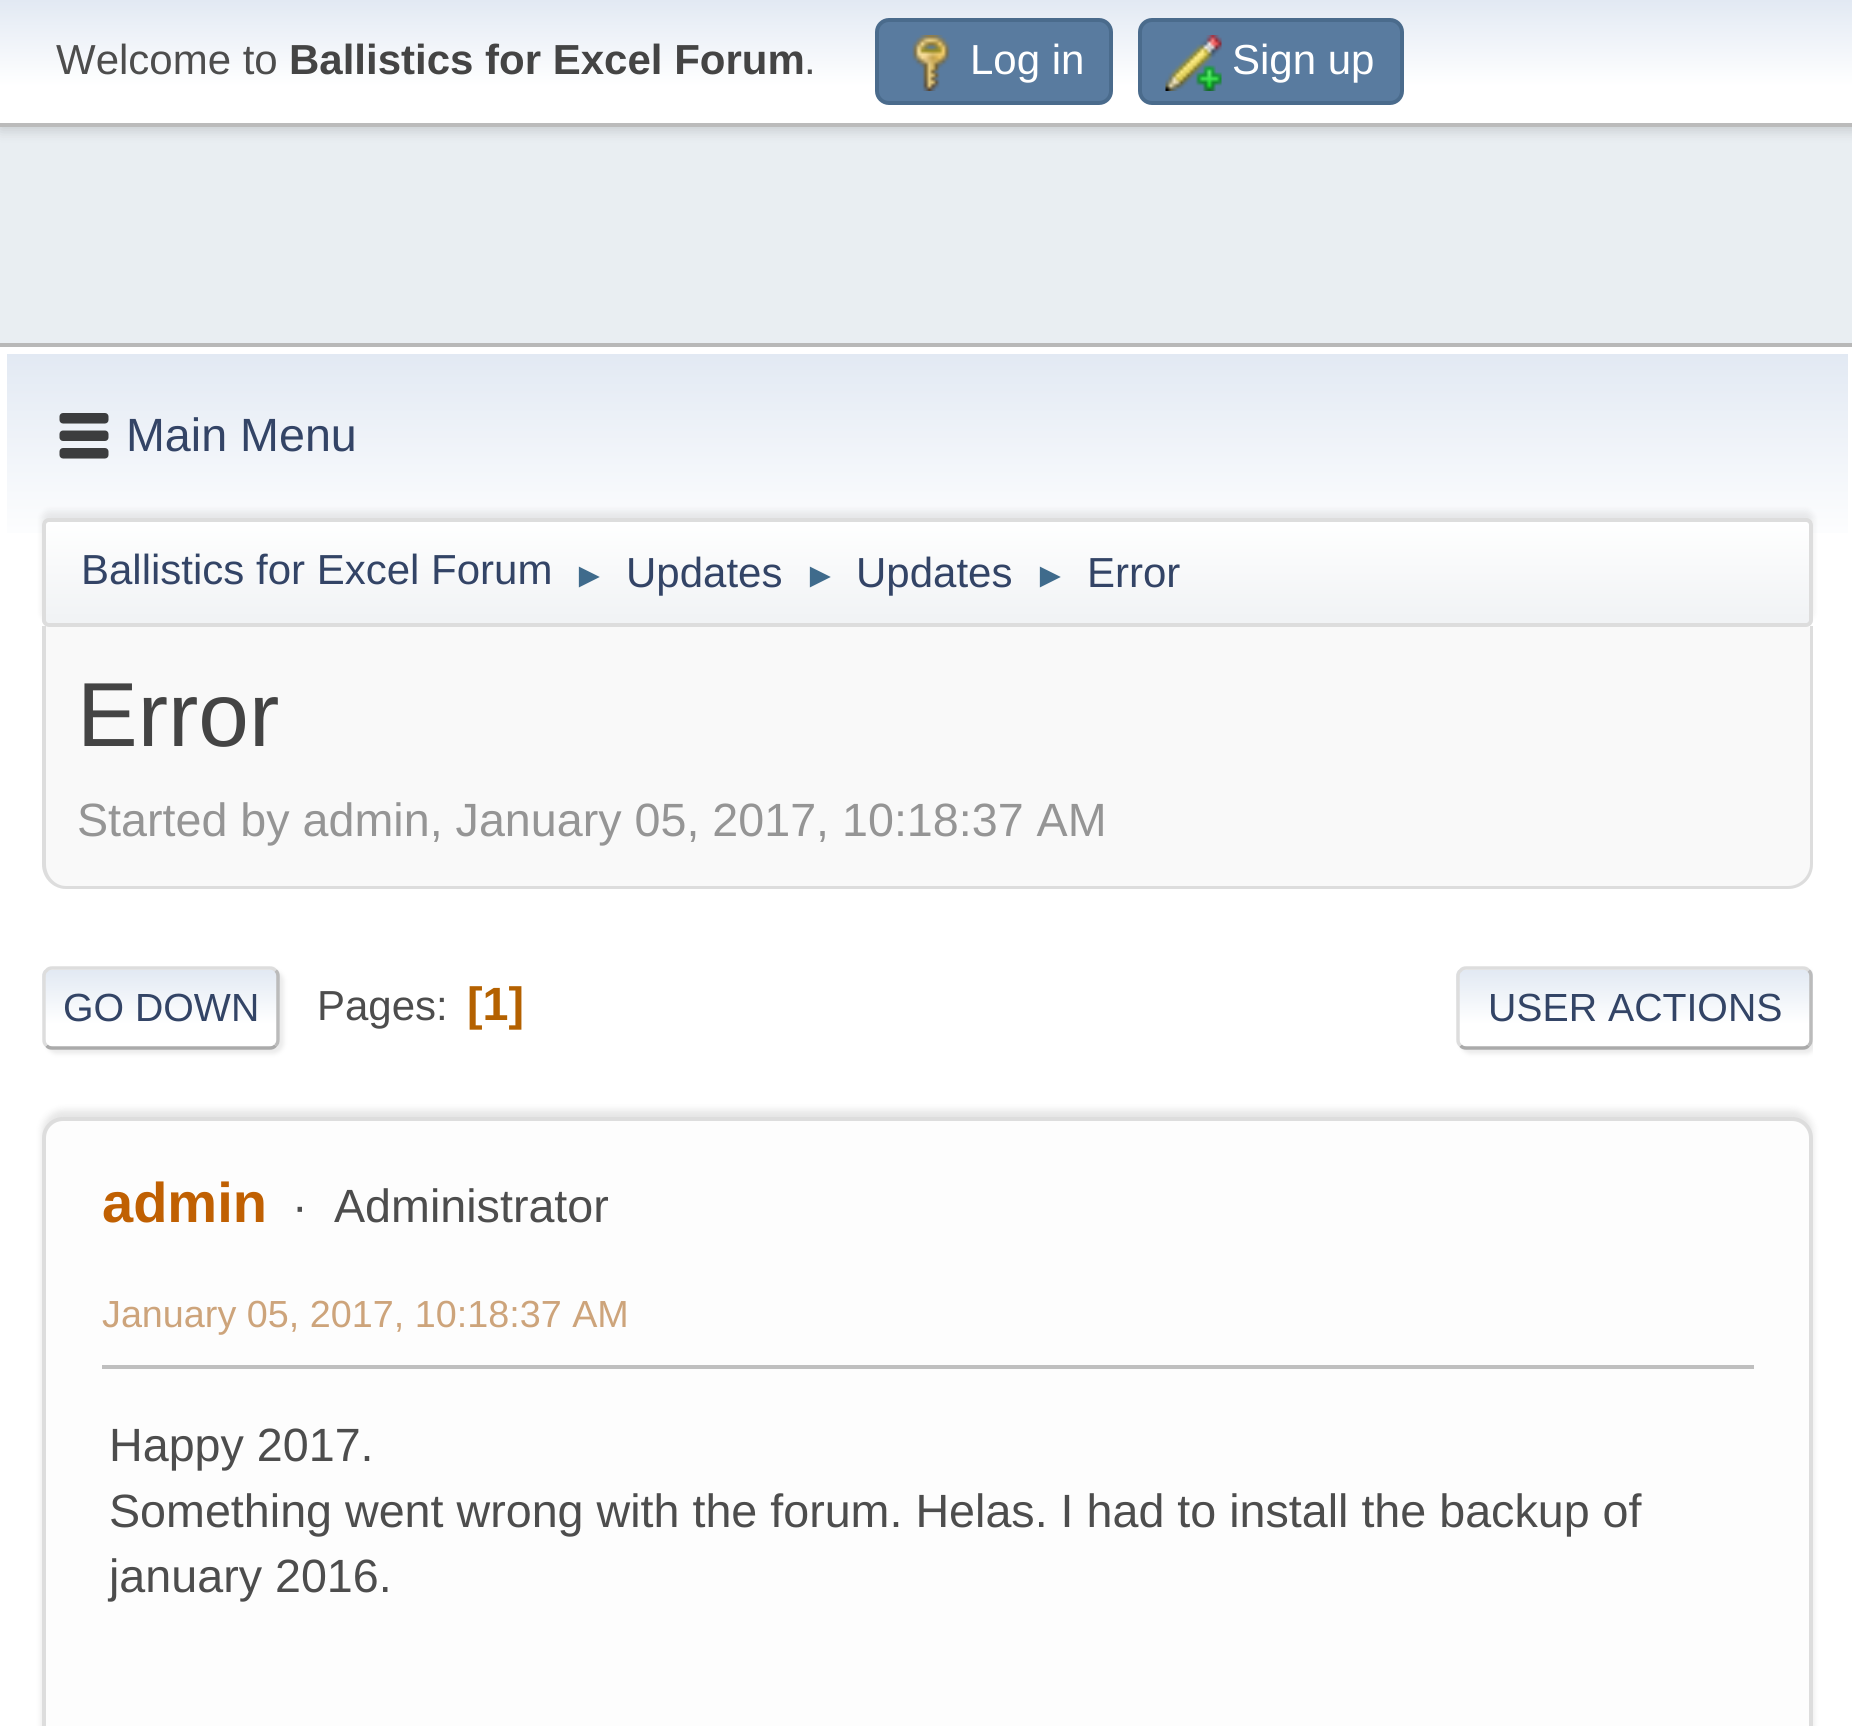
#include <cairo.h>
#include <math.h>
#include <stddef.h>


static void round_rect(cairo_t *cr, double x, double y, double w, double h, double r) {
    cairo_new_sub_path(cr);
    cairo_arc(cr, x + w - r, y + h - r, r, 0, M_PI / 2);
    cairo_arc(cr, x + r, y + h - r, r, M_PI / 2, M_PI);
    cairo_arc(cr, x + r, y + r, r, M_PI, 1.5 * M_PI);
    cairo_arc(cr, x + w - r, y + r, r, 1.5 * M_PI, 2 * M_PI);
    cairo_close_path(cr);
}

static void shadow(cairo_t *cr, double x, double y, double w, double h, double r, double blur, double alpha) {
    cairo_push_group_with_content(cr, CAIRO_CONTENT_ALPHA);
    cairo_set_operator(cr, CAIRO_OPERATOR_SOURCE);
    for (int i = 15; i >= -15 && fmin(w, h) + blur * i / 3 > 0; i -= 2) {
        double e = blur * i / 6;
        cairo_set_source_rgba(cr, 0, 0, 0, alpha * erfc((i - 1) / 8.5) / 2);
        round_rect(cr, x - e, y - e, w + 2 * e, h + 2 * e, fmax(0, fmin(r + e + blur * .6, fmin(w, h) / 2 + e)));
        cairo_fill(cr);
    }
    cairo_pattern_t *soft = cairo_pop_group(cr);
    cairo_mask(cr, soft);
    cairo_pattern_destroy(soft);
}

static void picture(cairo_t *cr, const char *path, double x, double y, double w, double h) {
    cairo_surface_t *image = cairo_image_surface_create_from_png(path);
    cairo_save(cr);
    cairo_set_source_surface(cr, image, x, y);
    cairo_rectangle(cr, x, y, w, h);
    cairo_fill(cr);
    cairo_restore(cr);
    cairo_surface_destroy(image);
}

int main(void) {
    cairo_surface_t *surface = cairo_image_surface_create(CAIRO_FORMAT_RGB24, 1852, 1726);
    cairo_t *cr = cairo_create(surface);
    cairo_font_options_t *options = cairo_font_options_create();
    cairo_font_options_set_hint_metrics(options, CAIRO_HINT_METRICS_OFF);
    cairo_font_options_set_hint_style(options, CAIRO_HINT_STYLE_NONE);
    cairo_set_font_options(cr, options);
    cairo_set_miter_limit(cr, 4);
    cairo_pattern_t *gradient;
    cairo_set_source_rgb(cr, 0.914, 0.933, 0.949);
    cairo_paint(cr);
    cairo_set_source_rgb(cr, 0, 0, 0);
    shadow(cr, 0, 4, 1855, 126, 0, 7, 0.16);
    gradient = cairo_pattern_create_linear(928, 0, 928, 123);
    cairo_pattern_add_color_stop_rgba(gradient, 0, 0.886, 0.914, 0.953, 1);
    cairo_pattern_add_color_stop_rgba(gradient, 0.7, 1, 1, 1, 1);
    cairo_set_source(cr, gradient);
    cairo_pattern_destroy(gradient);
    cairo_rectangle(cr, 0, 0, 1852, 123);
    cairo_fill(cr);
    cairo_set_source_rgb(cr, 0.733, 0.733, 0.733);
    cairo_rectangle(cr, 0, 123, 1852, 4);
    cairo_fill(cr);
    cairo_select_font_face(cr, "Liberation Sans", CAIRO_FONT_SLANT_NORMAL, CAIRO_FONT_WEIGHT_NORMAL);
    cairo_set_font_size(cr, 42);
    cairo_set_source_rgb(cr, 0.302, 0.302, 0.302);
    cairo_move_to(cr, 56, 74);
    cairo_show_text(cr, "Welcome to");
    cairo_select_font_face(cr, "Liberation Sans", CAIRO_FONT_SLANT_NORMAL, CAIRO_FONT_WEIGHT_BOLD);
    cairo_set_source_rgb(cr, 0.267, 0.267, 0.267);
    cairo_move_to(cr, 289, 74);
    cairo_show_text(cr, "Ballistics for Excel Forum");
    cairo_select_font_face(cr, "Liberation Sans", CAIRO_FONT_SLANT_NORMAL, CAIRO_FONT_WEIGHT_NORMAL);
    cairo_set_source_rgb(cr, 0.302, 0.302, 0.302);
    cairo_move_to(cr, 804, 74);
    cairo_show_text(cr, ".");
    cairo_set_source_rgb(cr, 0.349, 0.482, 0.624);
    round_rect(cr, 877, 20, 234, 83, 12);
    cairo_fill_preserve(cr);
    cairo_set_source_rgb(cr, 0.29, 0.42, 0.549);
    cairo_set_line_width(cr, 4);
    cairo_stroke(cr);
    picture(cr, "img1.png", 912, 35, 38, 56);
    cairo_set_source_rgb(cr, 1, 1, 1);
    cairo_move_to(cr, 970, 74);
    cairo_show_text(cr, "Log in");
    cairo_set_source_rgb(cr, 0.349, 0.482, 0.624);
    round_rect(cr, 1140, 20, 262, 83, 12);
    cairo_fill_preserve(cr);
    cairo_set_source_rgb(cr, 0.29, 0.42, 0.549);
    cairo_stroke(cr);
    picture(cr, "img2.png", 1165, 35, 57, 56);
    cairo_set_source_rgb(cr, 1, 1, 1);
    cairo_move_to(cr, 1232, 74);
    cairo_show_text(cr, "Sign up");
    cairo_rectangle(cr, 0, 347, 1852, 1379);
    cairo_fill(cr);
    cairo_set_source_rgb(cr, 0.722, 0.722, 0.722);
    cairo_rectangle(cr, 0, 343, 1852, 4);
    cairo_fill(cr);
    gradient = cairo_pattern_create_linear(928, 353, 928, 634);
    cairo_pattern_add_color_stop_rgba(gradient, 0, 0.886, 0.914, 0.953, 1);
    cairo_pattern_add_color_stop_rgba(gradient, 0.7, 1, 1, 1, 1);
    cairo_set_source(cr, gradient);
    cairo_pattern_destroy(gradient);
    cairo_rectangle(cr, 7, 354, 1841, 179);
    cairo_fill(cr);
    picture(cr, "img3.png", 59, 413, 50, 46);
    cairo_set_font_size(cr, 46.65);
    cairo_set_source_rgb(cr, 0.2, 0.267, 0.4);
    cairo_move_to(cr, 126, 451);
    cairo_show_text(cr, "Main Menu");
    cairo_set_source_rgb(cr, 0, 0, 0);
    shadow(cr, 42, 511, 1771, 109, 7, 3.5, 0.08);
    cairo_save(cr);
    round_rect(cr, 42, 518, 1771, 109, 7);
    cairo_clip(cr);
    gradient = cairo_pattern_create_linear(928, 521, 928, 623);
    cairo_pattern_add_color_stop_rgba(gradient, 0, 1, 1, 1, 1);
    cairo_pattern_add_color_stop_rgba(gradient, 0.95, 0.945, 0.953, 0.961, 1);
    cairo_set_source(cr, gradient);
    cairo_pattern_destroy(gradient);
    cairo_rectangle(cr, 42, 522, 1771, 101);
    cairo_fill(cr);
    cairo_restore(cr);
    round_rect(cr, 44, 520, 1767, 105, 5);
    cairo_set_source_rgb(cr, 0.867, 0.867, 0.867);
    cairo_stroke(cr);
    cairo_set_font_size(cr, 42);
    cairo_set_source_rgb(cr, 0.2, 0.267, 0.4);
    cairo_move_to(cr, 81, 584);
    cairo_show_text(cr, "Ballistics for Excel Forum");
    cairo_set_font_size(cr, 35);
    cairo_set_source_rgb(cr, 0.247, 0.42, 0.549);
    cairo_move_to(cr, 572, 587);
    cairo_show_text(cr, "►");
    cairo_set_font_size(cr, 42);
    cairo_set_source_rgb(cr, 0.2, 0.267, 0.4);
    cairo_move_to(cr, 626, 587);
    cairo_show_text(cr, "Updates");
    cairo_set_font_size(cr, 35);
    cairo_set_source_rgb(cr, 0.247, 0.42, 0.549);
    cairo_move_to(cr, 803, 587);
    cairo_show_text(cr, "►");
    cairo_set_font_size(cr, 42);
    cairo_set_source_rgb(cr, 0.2, 0.267, 0.4);
    cairo_move_to(cr, 856, 587);
    cairo_show_text(cr, "Updates");
    cairo_set_font_size(cr, 35);
    cairo_set_source_rgb(cr, 0.247, 0.42, 0.549);
    cairo_move_to(cr, 1033, 587);
    cairo_show_text(cr, "►");
    cairo_set_font_size(cr, 42);
    cairo_set_source_rgb(cr, 0.2, 0.267, 0.4);
    cairo_move_to(cr, 1087, 587);
    cairo_show_text(cr, "Error");
    cairo_set_source_rgb(cr, 0.973, 0.973, 0.973);
    cairo_new_path(cr);
    cairo_move_to(cr, 42, 627);
    cairo_line_to(cr, 1813, 627);
    cairo_line_to(cr, 1813, 864);
    cairo_curve_to(cr, 1813, 878, 1802, 889, 1788, 889);
    cairo_line_to(cr, 67, 889);
    cairo_curve_to(cr, 53, 889, 42, 878, 42, 864);
    cairo_close_path(cr);
    cairo_fill(cr);
    cairo_set_source_rgb(cr, 0.867, 0.867, 0.867);
    cairo_set_fill_rule(cr, CAIRO_FILL_RULE_EVEN_ODD);
    cairo_new_path(cr);
    cairo_move_to(cr, 42, 626);
    cairo_line_to(cr, 1813, 626);
    cairo_line_to(cr, 1813, 864);
    cairo_curve_to(cr, 1813, 878, 1802, 889, 1788, 889);
    cairo_line_to(cr, 66, 889);
    cairo_curve_to(cr, 53, 889, 42, 878, 42, 864);
    cairo_close_path(cr);
    cairo_move_to(cr, 46, 626);
    cairo_line_to(cr, 1810, 626);
    cairo_line_to(cr, 1810, 864);
    cairo_curve_to(cr, 1810, 876, 1800, 886, 1788, 886);
    cairo_line_to(cr, 66, 886);
    cairo_curve_to(cr, 55, 886, 46, 876, 46, 864);
    cairo_close_path(cr);
    cairo_fill(cr);
    cairo_set_font_size(cr, 91);
    cairo_set_source_rgb(cr, 0.267, 0.267, 0.267);
    cairo_move_to(cr, 77, 746);
    cairo_show_text(cr, "Error");
    cairo_set_font_size(cr, 46.65);
    cairo_set_source_rgb(cr, 0.584, 0.584, 0.584);
    cairo_move_to(cr, 77, 836);
    cairo_show_text(cr, "Started by admin, January 05, 2017, 10:18:37 AM");
    cairo_set_source_rgb(cr, 0.867, 0.867, 0.867);
    shadow(cr, 46, 970, 238, 84, 11, 2, 0.57);
    cairo_save(cr);
    cairo_set_fill_rule(cr, CAIRO_FILL_RULE_WINDING);
    round_rect(cr, 42, 966, 238, 84, 11);
    cairo_clip(cr);
    gradient = cairo_pattern_create_linear(161, 970, 161, 1047);
    cairo_pattern_add_color_stop_rgba(gradient, 0, 0.886, 0.914, 0.953, 1);
    cairo_pattern_add_color_stop_rgba(gradient, 0.7, 1, 1, 1, 1);
    cairo_set_source(cr, gradient);
    cairo_pattern_destroy(gradient);
    cairo_rectangle(cr, 42, 970, 238, 77);
    cairo_fill(cr);
    cairo_restore(cr);
    cairo_new_path(cr);
    cairo_move_to(cr, 275.5, 970.5);
    cairo_curve_to(cr, 277.5, 972, 278, 974, 278, 976.5);
    cairo_line_to(cr, 278, 1039.5);
    cairo_curve_to(cr, 278, 1042, 277.5, 1044, 275.5, 1045.5);
    cairo_set_source_rgb(cr, 0.733, 0.733, 0.733);
    cairo_set_line_width(cr, 3.5);
    cairo_stroke(cr);
    cairo_new_path(cr);
    cairo_move_to(cr, 275.5, 1045.5);
    cairo_curve_to(cr, 274, 1047.5, 272, 1048, 269.5, 1048);
    cairo_line_to(cr, 52.5, 1048);
    cairo_curve_to(cr, 50, 1048, 48, 1047.5, 46.5, 1045.5);
    cairo_set_source_rgb(cr, 0.667, 0.667, 0.667);
    cairo_stroke(cr);
    cairo_new_path(cr);
    cairo_move_to(cr, 46.5, 1045.5);
    cairo_curve_to(cr, 44.5, 1044, 44, 1042, 44, 1039.5);
    cairo_line_to(cr, 44, 976.5);
    cairo_curve_to(cr, 44, 974, 44.5, 972, 46.5, 970.5);
    cairo_curve_to(cr, 48, 968.5, 50, 968, 52.5, 968);
    cairo_line_to(cr, 269.5, 968);
    cairo_curve_to(cr, 272, 968, 274, 968.5, 275.5, 970.5);
    cairo_set_source_rgb(cr, 0.867, 0.867, 0.867);
    cairo_stroke(cr);
    cairo_set_font_size(cr, 39.25);
    cairo_set_source_rgb(cr, 0.2, 0.267, 0.4);
    cairo_move_to(cr, 63, 1021);
    cairo_show_text(cr, "GO DOWN");
    cairo_set_font_size(cr, 42);
    cairo_set_source_rgb(cr, 0.302, 0.302, 0.302);
    cairo_move_to(cr, 317, 1020);
    cairo_show_text(cr, "Pages:");
    cairo_select_font_face(cr, "Liberation Sans", CAIRO_FONT_SLANT_NORMAL, CAIRO_FONT_WEIGHT_BOLD);
    cairo_set_font_size(cr, 46.65);
    cairo_set_source_rgb(cr, 0.706, 0.38, 0);
    cairo_move_to(cr, 467, 1020);
    cairo_show_text(cr, "[1]");
    cairo_save(cr);
    cairo_set_fill_rule(cr, CAIRO_FILL_RULE_WINDING);
    cairo_rectangle(cr, 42, 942, 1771, 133);
    cairo_clip(cr);
    cairo_set_source_rgb(cr, 0.867, 0.867, 0.867);
    shadow(cr, 1460, 970, 357, 84, 11, 2, 0.57);
    cairo_restore(cr);
    cairo_save(cr);
    cairo_set_fill_rule(cr, CAIRO_FILL_RULE_WINDING);
    round_rect(cr, 1456, 966, 357, 84, 11);
    cairo_clip(cr);
    gradient = cairo_pattern_create_linear(1635, 970, 1635, 1047);
    cairo_pattern_add_color_stop_rgba(gradient, 0, 0.886, 0.914, 0.953, 1);
    cairo_pattern_add_color_stop_rgba(gradient, 0.7, 1, 1, 1, 1);
    cairo_set_source(cr, gradient);
    cairo_pattern_destroy(gradient);
    cairo_rectangle(cr, 1456, 970, 357, 77);
    cairo_fill(cr);
    cairo_restore(cr);
    cairo_new_path(cr);
    cairo_move_to(cr, 1808.5, 970.5);
    cairo_curve_to(cr, 1810.5, 972, 1811, 974, 1811, 976.5);
    cairo_line_to(cr, 1811, 1039.5);
    cairo_curve_to(cr, 1811, 1042, 1810.5, 1044, 1808.5, 1045.5);
    cairo_set_source_rgb(cr, 0.733, 0.733, 0.733);
    cairo_stroke(cr);
    cairo_new_path(cr);
    cairo_move_to(cr, 1808.5, 1045.5);
    cairo_curve_to(cr, 1807, 1047.5, 1805, 1048, 1802.5, 1048);
    cairo_line_to(cr, 1466.5, 1048);
    cairo_curve_to(cr, 1464, 1048, 1462, 1047.5, 1460.5, 1045.5);
    cairo_set_source_rgb(cr, 0.667, 0.667, 0.667);
    cairo_stroke(cr);
    cairo_new_path(cr);
    cairo_move_to(cr, 1460.5, 1045.5);
    cairo_curve_to(cr, 1458.5, 1044, 1458, 1042, 1458, 1039.5);
    cairo_line_to(cr, 1458, 976.5);
    cairo_curve_to(cr, 1458, 974, 1458.5, 972, 1460.5, 970.5);
    cairo_curve_to(cr, 1462, 968.5, 1464, 968, 1466.5, 968);
    cairo_line_to(cr, 1802.5, 968);
    cairo_curve_to(cr, 1805, 968, 1807, 968.5, 1808.5, 970.5);
    cairo_set_source_rgb(cr, 0.867, 0.867, 0.867);
    cairo_stroke(cr);
    cairo_select_font_face(cr, "Liberation Sans", CAIRO_FONT_SLANT_NORMAL, CAIRO_FONT_WEIGHT_NORMAL);
    cairo_set_font_size(cr, 39.25);
    cairo_set_source_rgb(cr, 0.2, 0.267, 0.4);
    cairo_move_to(cr, 1488, 1021);
    cairo_show_text(cr, "USER ACTIONS");
    cairo_set_source_rgb(cr, 0, 0, 0);
    shadow(cr, 42, 1110, 1771, 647, 21, 3.5, 0.1);
    cairo_set_source_rgb(cr, 0.992, 0.992, 0.992);
    round_rect(cr, 44, 1119, 1767, 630, 19);
    cairo_fill_preserve(cr);
    cairo_set_source_rgb(cr, 0.867, 0.867, 0.867);
    cairo_set_line_width(cr, 4);
    cairo_stroke(cr);
    cairo_select_font_face(cr, "Liberation Sans", CAIRO_FONT_SLANT_NORMAL, CAIRO_FONT_WEIGHT_BOLD);
    cairo_set_font_size(cr, 56);
    cairo_set_source_rgb(cr, 0.753, 0.376, 0.008);
    cairo_move_to(cr, 102, 1222);
    cairo_show_text(cr, "admin");
    cairo_select_font_face(cr, "Liberation Sans", CAIRO_FONT_SLANT_NORMAL, CAIRO_FONT_WEIGHT_NORMAL);
    cairo_set_font_size(cr, 46.65);
    cairo_set_source_rgb(cr, 0.302, 0.302, 0.302);
    cairo_move_to(cr, 292, 1222);
    cairo_show_text(cr, "·");
    cairo_move_to(cr, 334, 1222);
    cairo_show_text(cr, "Administrator");
    cairo_set_font_size(cr, 37.75);
    cairo_set_source_rgb(cr, 0.804, 0.643, 0.482);
    cairo_move_to(cr, 102, 1327);
    cairo_show_text(cr, "January 05, 2017, 10:18:37 AM");
    cairo_set_source_rgb(cr, 0.749, 0.749, 0.749);
    cairo_rectangle(cr, 102, 1365, 1652, 4);
    cairo_fill(cr);
    cairo_set_font_size(cr, 46.65);
    cairo_set_source_rgb(cr, 0.302, 0.302, 0.302);
    cairo_move_to(cr, 109, 1461);
    cairo_show_text(cr, "Happy 2017.");
    cairo_move_to(cr, 109, 1527);
    cairo_show_text(cr, "Something went wrong with the forum. Helas. I had to install the backup of");
    cairo_move_to(cr, 109, 1592);
    cairo_show_text(cr, "january 2016.");
    cairo_surface_write_to_png(surface, "page.png");
    cairo_font_options_destroy(options);
    cairo_destroy(cr);
    cairo_surface_destroy(surface);
    return 0;
}
